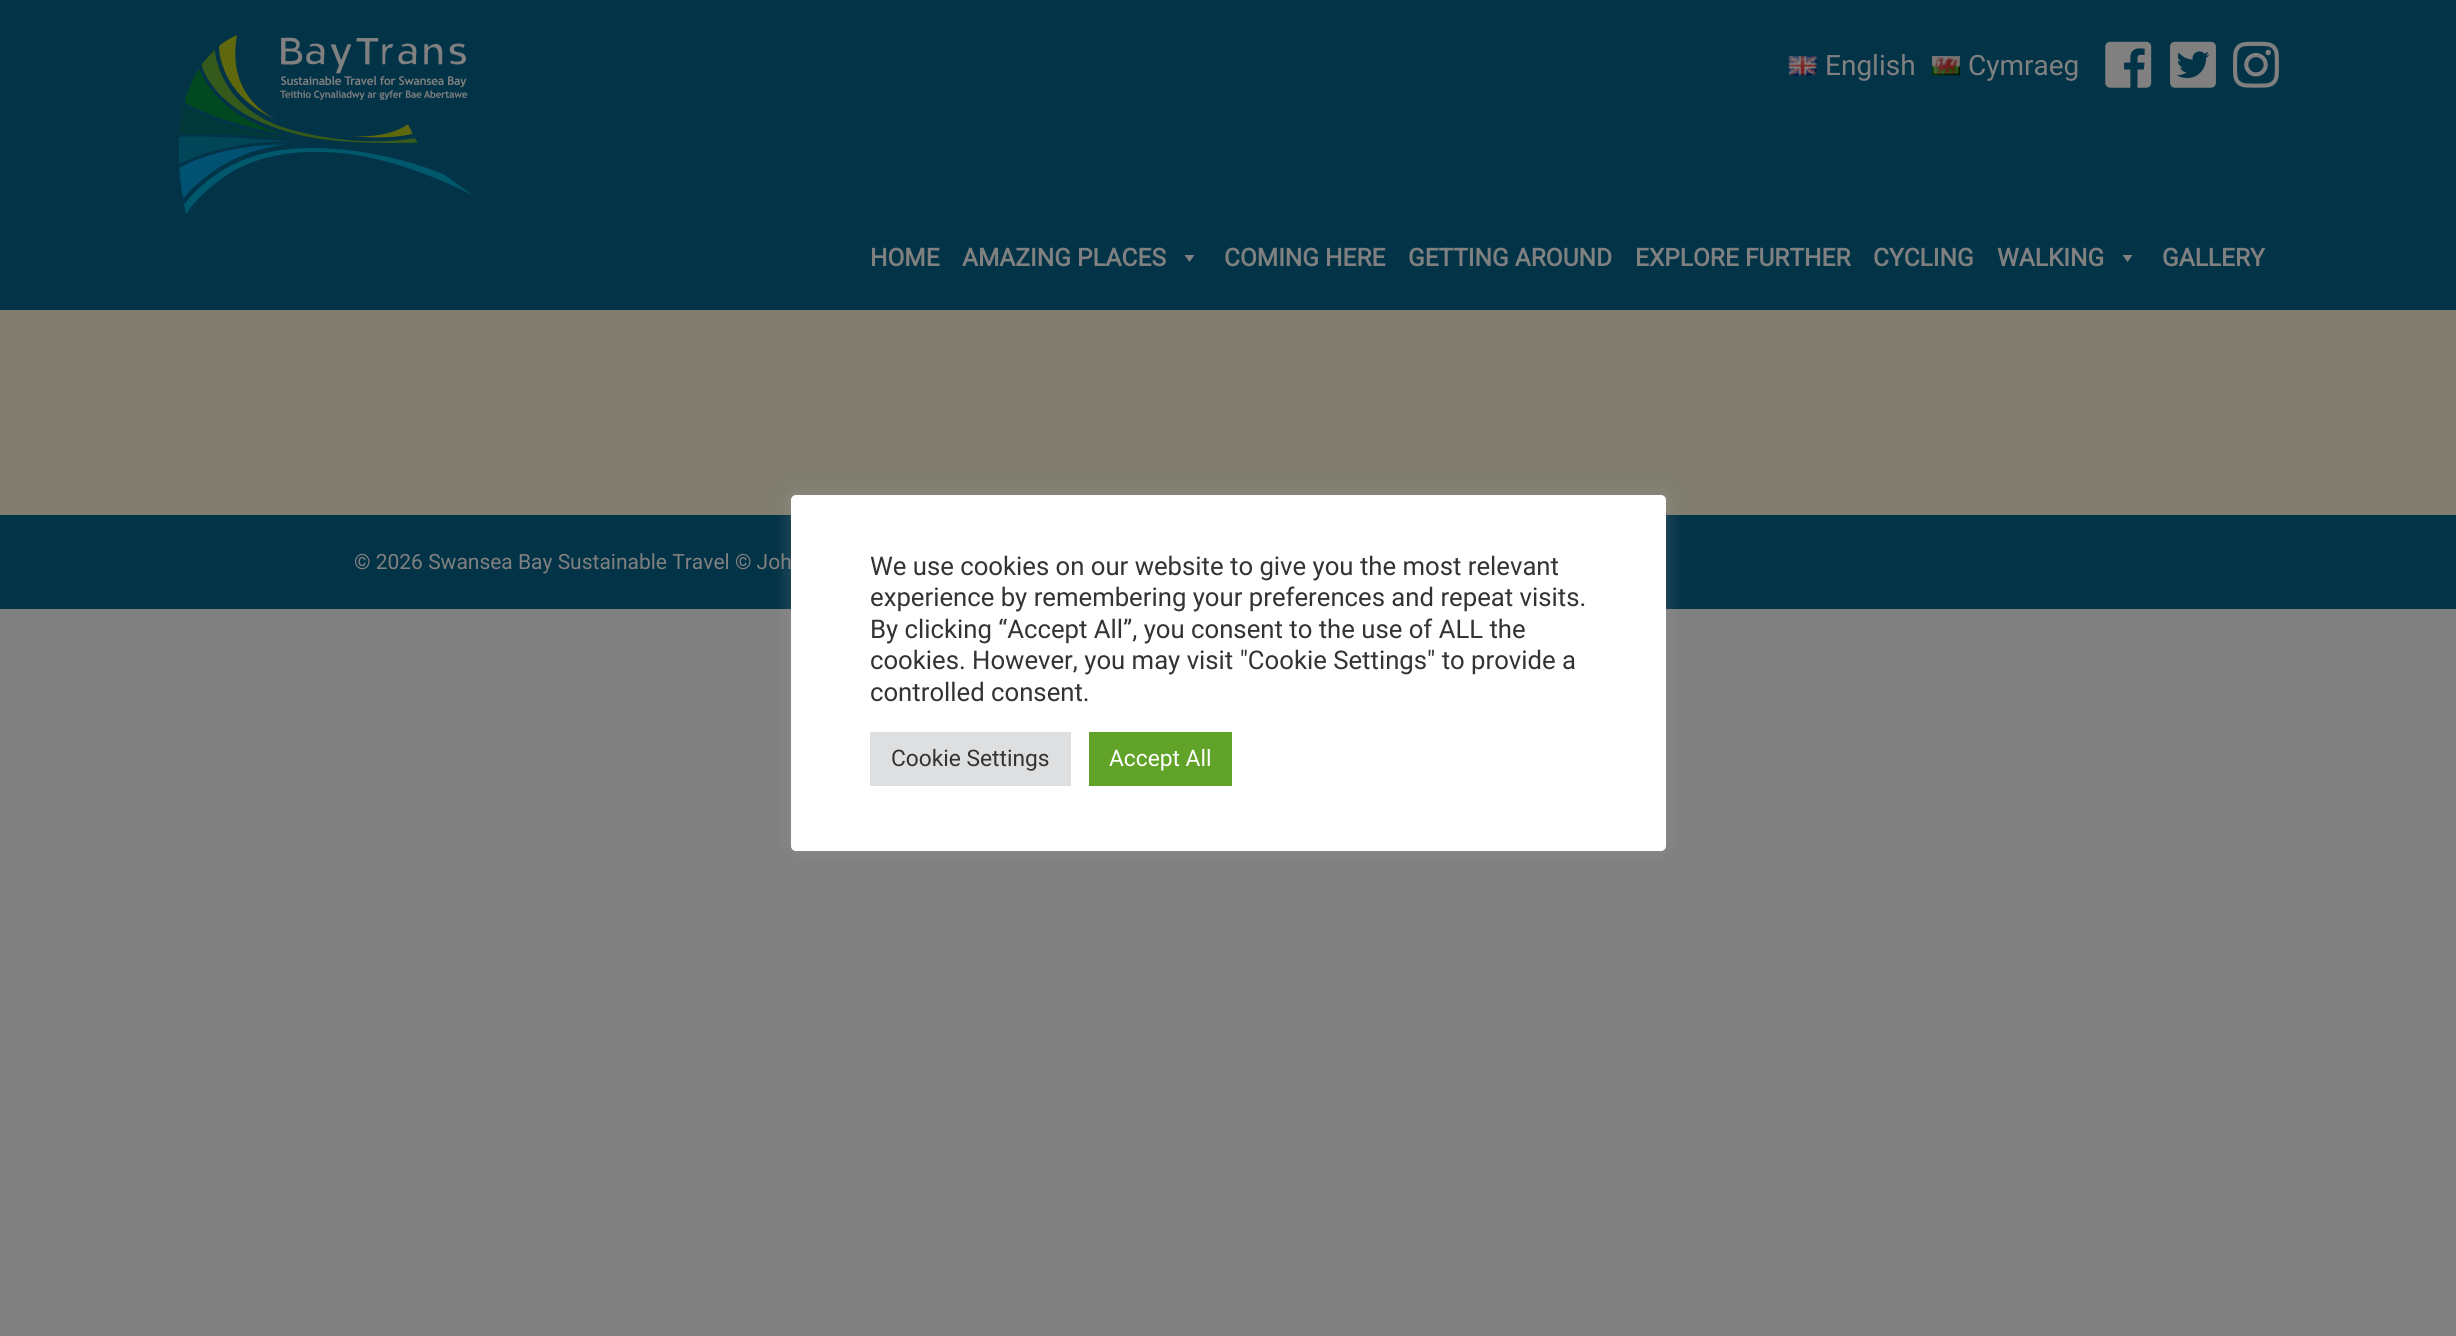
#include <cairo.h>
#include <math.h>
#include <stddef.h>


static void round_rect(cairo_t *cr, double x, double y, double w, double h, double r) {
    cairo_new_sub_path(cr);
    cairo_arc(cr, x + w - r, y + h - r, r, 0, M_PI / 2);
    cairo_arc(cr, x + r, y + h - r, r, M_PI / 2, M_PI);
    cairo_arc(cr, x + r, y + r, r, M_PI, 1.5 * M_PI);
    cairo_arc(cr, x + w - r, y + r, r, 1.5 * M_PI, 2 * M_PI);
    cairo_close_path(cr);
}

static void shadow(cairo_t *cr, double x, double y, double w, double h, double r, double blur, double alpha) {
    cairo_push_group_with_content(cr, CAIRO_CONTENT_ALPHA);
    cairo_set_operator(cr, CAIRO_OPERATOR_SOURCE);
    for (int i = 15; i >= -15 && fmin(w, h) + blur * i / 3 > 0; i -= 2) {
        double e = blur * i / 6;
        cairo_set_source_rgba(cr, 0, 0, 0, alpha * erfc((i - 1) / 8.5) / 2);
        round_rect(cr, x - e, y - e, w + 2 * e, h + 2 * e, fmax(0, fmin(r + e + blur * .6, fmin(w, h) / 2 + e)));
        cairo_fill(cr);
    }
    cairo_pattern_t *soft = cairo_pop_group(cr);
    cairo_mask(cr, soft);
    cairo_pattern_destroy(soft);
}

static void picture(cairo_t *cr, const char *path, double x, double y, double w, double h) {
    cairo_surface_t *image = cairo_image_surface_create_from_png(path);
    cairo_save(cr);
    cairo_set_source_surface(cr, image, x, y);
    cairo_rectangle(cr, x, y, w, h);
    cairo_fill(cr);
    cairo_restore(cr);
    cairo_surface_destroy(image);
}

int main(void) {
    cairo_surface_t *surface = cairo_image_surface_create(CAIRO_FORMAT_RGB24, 2456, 1336);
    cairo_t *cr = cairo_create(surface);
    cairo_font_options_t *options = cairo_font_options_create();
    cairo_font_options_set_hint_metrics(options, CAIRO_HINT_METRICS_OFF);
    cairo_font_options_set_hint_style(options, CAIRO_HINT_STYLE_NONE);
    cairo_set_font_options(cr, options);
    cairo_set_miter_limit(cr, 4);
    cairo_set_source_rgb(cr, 0.502, 0.502, 0.502);
    cairo_paint(cr);
    cairo_set_source_rgb(cr, 0.012, 0.2, 0.278);
    cairo_rectangle(cr, 0, 0, 2456, 310);
    cairo_fill(cr);
    picture(cr, "img1.png", 179, 35, 295, 180);
    picture(cr, "img2.png", 1788, 56, 29, 20);
    cairo_select_font_face(cr, "Roboto", CAIRO_FONT_SLANT_NORMAL, CAIRO_FONT_WEIGHT_NORMAL);
    cairo_set_font_size(cr, 28);
    cairo_set_source_rgb(cr, 0.502, 0.502, 0.502);
    cairo_move_to(cr, 1825, 75);
    cairo_show_text(cr, "English");
    picture(cr, "img3.png", 1932, 56, 28, 20);
    cairo_move_to(cr, 1968, 75);
    cairo_show_text(cr, "Cymraeg");
    picture(cr, "img4.png", 2105, 41, 47, 47);
    picture(cr, "img5.png", 2170, 41, 46, 47);
    picture(cr, "img6.png", 2233, 41, 46, 47);
    cairo_select_font_face(cr, "Roboto", CAIRO_FONT_SLANT_NORMAL, CAIRO_FONT_WEIGHT_BOLD);
    cairo_set_font_size(cr, 24.5);
    cairo_move_to(cr, 870, 266);
    cairo_show_text(cr, "HOME");
    cairo_move_to(cr, 962, 266);
    cairo_show_text(cr, "AMAZING PLACES");
    cairo_new_path(cr);
    cairo_move_to(cr, 1194.5, 255);
    cairo_line_to(cr, 1189.5, 262);
    cairo_line_to(cr, 1184.5, 255);
    cairo_close_path(cr);
    cairo_fill(cr);
    cairo_move_to(cr, 1224, 266);
    cairo_show_text(cr, "COMING HERE");
    cairo_move_to(cr, 1408, 266);
    cairo_show_text(cr, "GETTING AROUND");
    cairo_move_to(cr, 1635, 266);
    cairo_show_text(cr, "EXPLORE FURTHER");
    cairo_move_to(cr, 1873, 266);
    cairo_show_text(cr, "CYCLING");
    cairo_move_to(cr, 1997, 266);
    cairo_show_text(cr, "WALKING");
    cairo_new_path(cr);
    cairo_move_to(cr, 2132.5, 255);
    cairo_line_to(cr, 2127.5, 262);
    cairo_line_to(cr, 2122.5, 255);
    cairo_close_path(cr);
    cairo_fill(cr);
    cairo_move_to(cr, 2162, 266);
    cairo_show_text(cr, "GALLERY");
    cairo_set_source_rgb(cr, 0.502, 0.49, 0.435);
    cairo_rectangle(cr, 0, 310, 2456, 205);
    cairo_fill(cr);
    cairo_set_source_rgb(cr, 0.012, 0.2, 0.278);
    cairo_rectangle(cr, 0, 515, 2456, 94);
    cairo_fill(cr);
    cairo_select_font_face(cr, "Roboto", CAIRO_FONT_SLANT_NORMAL, CAIRO_FONT_WEIGHT_NORMAL);
    cairo_set_font_size(cr, 21);
    cairo_set_source_rgb(cr, 0.502, 0.502, 0.502);
    cairo_move_to(cr, 354, 569);
    cairo_show_text(cr, "© 2026 Swansea Bay Sustainable Travel © Joh");
    cairo_set_source_rgb(cr, 0.675, 0.671, 0.671);
    shadow(cr, 791, 494, 875, 355, 5, 9, 0.3);
    cairo_set_source_rgb(cr, 1, 1, 1);
    round_rect(cr, 791, 495, 875, 356, 5);
    cairo_fill(cr);
    cairo_set_font_size(cr, 25.7);
    cairo_set_source_rgb(cr, 0.2, 0.2, 0.2);
    cairo_move_to(cr, 870, 575);
    cairo_show_text(cr, "We use cookies on our website to give you the most relevant");
    cairo_move_to(cr, 870, 606);
    cairo_show_text(cr, "experience by remembering your preferences and repeat visits.");
    cairo_move_to(cr, 870, 638);
    cairo_show_text(cr, "By clicking “Accept All”, you consent to the use of ALL the");
    cairo_move_to(cr, 870, 669);
    cairo_show_text(cr, "cookies. However, you may visit \"Cookie Settings\" to provide a");
    cairo_move_to(cr, 870, 701);
    cairo_show_text(cr, "controlled consent.");
    cairo_set_source_rgb(cr, 0.871, 0.875, 0.878);
    cairo_rectangle(cr, 870, 732, 201, 54);
    cairo_fill(cr);
    cairo_set_font_size(cr, 22.75);
    cairo_set_source_rgb(cr, 0.2, 0.2, 0.2);
    cairo_move_to(cr, 891, 766);
    cairo_show_text(cr, "Cookie Settings");
    cairo_set_source_rgb(cr, 0.38, 0.635, 0.161);
    cairo_rectangle(cr, 1089, 732, 143, 54);
    cairo_fill(cr);
    cairo_set_source_rgb(cr, 1, 1, 1);
    cairo_move_to(cr, 1109, 766);
    cairo_show_text(cr, "Accept All");
    cairo_surface_write_to_png(surface, "page.png");
    cairo_font_options_destroy(options);
    cairo_destroy(cr);
    cairo_surface_destroy(surface);
    return 0;
}
